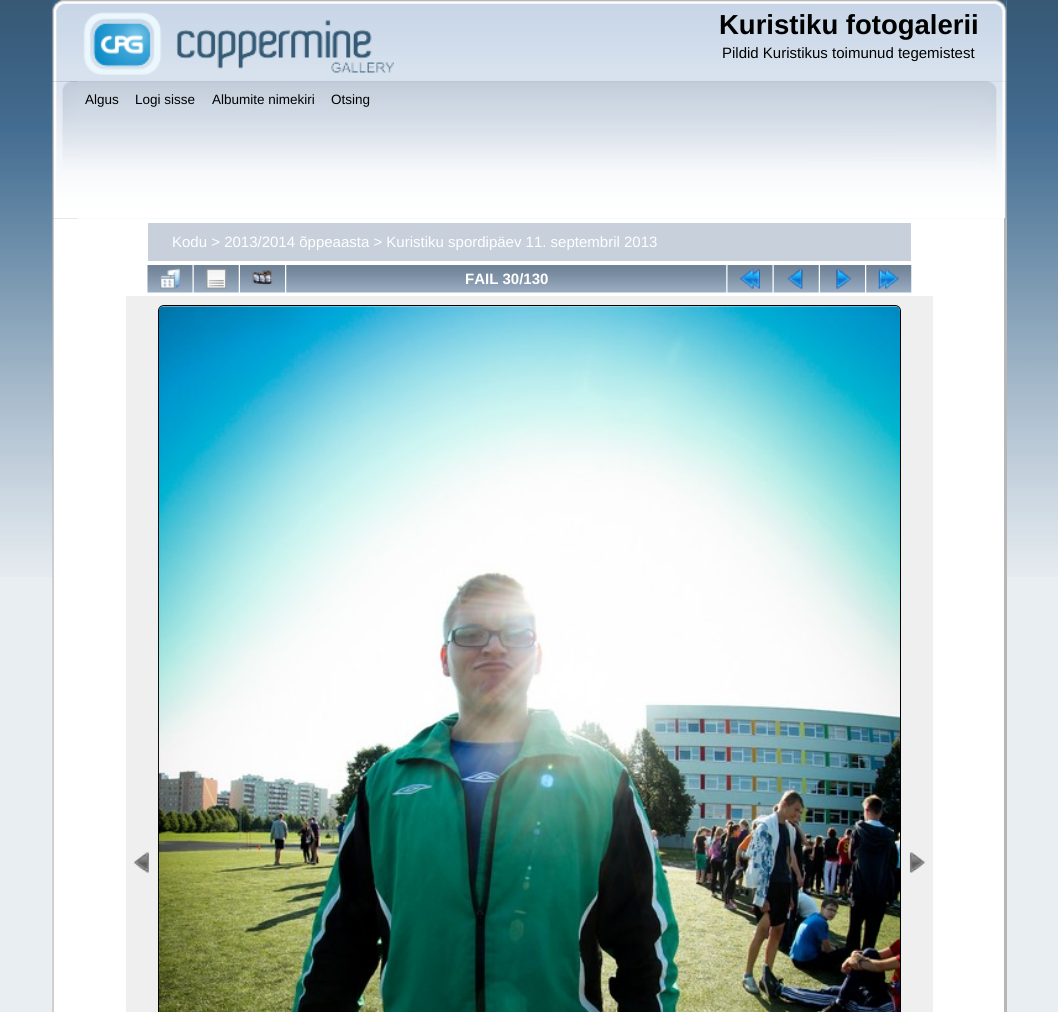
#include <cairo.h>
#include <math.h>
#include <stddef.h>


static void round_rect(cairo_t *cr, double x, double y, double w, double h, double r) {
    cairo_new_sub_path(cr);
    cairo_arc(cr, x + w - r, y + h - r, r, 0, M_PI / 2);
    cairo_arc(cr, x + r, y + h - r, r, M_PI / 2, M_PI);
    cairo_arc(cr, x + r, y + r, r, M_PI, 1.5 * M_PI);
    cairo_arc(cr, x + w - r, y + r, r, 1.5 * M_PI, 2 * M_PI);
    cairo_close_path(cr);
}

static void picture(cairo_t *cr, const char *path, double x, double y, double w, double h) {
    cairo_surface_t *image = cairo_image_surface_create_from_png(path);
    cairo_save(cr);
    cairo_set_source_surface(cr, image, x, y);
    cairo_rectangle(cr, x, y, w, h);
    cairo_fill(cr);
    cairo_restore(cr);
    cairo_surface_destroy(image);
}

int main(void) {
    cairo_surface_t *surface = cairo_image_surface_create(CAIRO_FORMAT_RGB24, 1058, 1012);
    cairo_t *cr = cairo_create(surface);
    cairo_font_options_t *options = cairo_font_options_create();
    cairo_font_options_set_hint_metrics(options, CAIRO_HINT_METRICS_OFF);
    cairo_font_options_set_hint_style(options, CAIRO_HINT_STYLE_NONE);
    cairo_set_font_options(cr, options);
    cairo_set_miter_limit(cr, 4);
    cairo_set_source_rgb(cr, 0.914, 0.933, 0.949);
    cairo_paint(cr);
    picture(cr, "img1.png", 0, 0, 1058, 577);
    picture(cr, "img2.png", 52, 0, 955, 82);
    picture(cr, "img3.png", 77, 0, 930, 82);
    picture(cr, "img4.png", 83, 12, 311, 63);
    cairo_select_font_face(cr, "Liberation Sans", CAIRO_FONT_SLANT_NORMAL, CAIRO_FONT_WEIGHT_BOLD);
    cairo_set_font_size(cr, 27.5);
    cairo_set_source_rgb(cr, 0, 0, 0);
    cairo_move_to(cr, 719, 34);
    cairo_show_text(cr, "Kuristiku fotogalerii");
    cairo_select_font_face(cr, "Liberation Sans", CAIRO_FONT_SLANT_NORMAL, CAIRO_FONT_WEIGHT_NORMAL);
    cairo_set_font_size(cr, 15);
    cairo_move_to(cr, 722, 58);
    cairo_show_text(cr, "Pildid Kuristikus toimunud tegemistest");
    picture(cr, "img5.png", 52, 81, 955, 138);
    picture(cr, "img6.png", 77, 81, 930, 138);
    cairo_set_font_size(cr, 13.5);
    cairo_move_to(cr, 85, 104);
    cairo_show_text(cr, "Algus");
    cairo_move_to(cr, 135, 104);
    cairo_show_text(cr, "Logi sisse");
    cairo_move_to(cr, 212, 104);
    cairo_show_text(cr, "Albumite nimekiri");
    cairo_move_to(cr, 331, 104);
    cairo_show_text(cr, "Otsing");
    picture(cr, "img7.png", 52, 218, 952, 794);
    cairo_set_source_rgb(cr, 0.718, 0.718, 0.718);
    cairo_rectangle(cr, 1004, 218, 3, 794);
    cairo_fill(cr);
    cairo_set_source_rgb(cr, 0.78, 0.816, 0.859);
    cairo_rectangle(cr, 148, 223, 763, 38);
    cairo_fill(cr);
    cairo_set_font_size(cr, 15);
    cairo_set_source_rgb(cr, 1, 1, 1);
    cairo_move_to(cr, 172, 247);
    cairo_show_text(cr, "Kodu > 2013/2014 õppeaasta > Kuristiku spordipäev 11. septembril 2013");
    picture(cr, "img8.png", 147, 265, 46, 28);
    picture(cr, "img9.png", 160, 268, 20, 21);
    picture(cr, "img10.png", 193, 265, 46, 28);
    picture(cr, "img11.png", 206, 268, 21, 21);
    picture(cr, "img12.png", 240, 265, 45, 28);
    picture(cr, "img13.png", 252, 270, 21, 15);
    picture(cr, "img14.png", 286, 265, 441, 28);
    cairo_select_font_face(cr, "Liberation Sans", CAIRO_FONT_SLANT_NORMAL, CAIRO_FONT_WEIGHT_BOLD);
    cairo_move_to(cr, 465, 284);
    cairo_show_text(cr, "FAIL 30/130");
    picture(cr, "img8.png", 727, 265, 46, 28);
    picture(cr, "img15.png", 740, 268, 20, 21);
    picture(cr, "img10.png", 773, 265, 46, 28);
    picture(cr, "img16.png", 787, 268, 16, 21);
    picture(cr, "img12.png", 820, 265, 45, 28);
    picture(cr, "img17.png", 836, 268, 16, 21);
    picture(cr, "img18.png", 866, 265, 46, 28);
    picture(cr, "img19.png", 878, 268, 21, 21);
    cairo_set_source_rgb(cr, 0.937, 0.937, 0.937);
    cairo_rectangle(cr, 126, 296, 807, 716);
    cairo_fill(cr);
    picture(cr, "img20.png", 133, 852, 16, 21);
    round_rect(cr, 158.5, 305.5, 742, 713, 5.5);
    cairo_set_source_rgb(cr, 0, 0, 0);
    cairo_set_line_width(cr, 1);
    cairo_stroke(cr);
    picture(cr, "img21.png", 158, 306, 742, 706);
    picture(cr, "img22.png", 909, 852, 17, 21);
    cairo_surface_write_to_png(surface, "page.png");
    cairo_font_options_destroy(options);
    cairo_destroy(cr);
    cairo_surface_destroy(surface);
    return 0;
}
